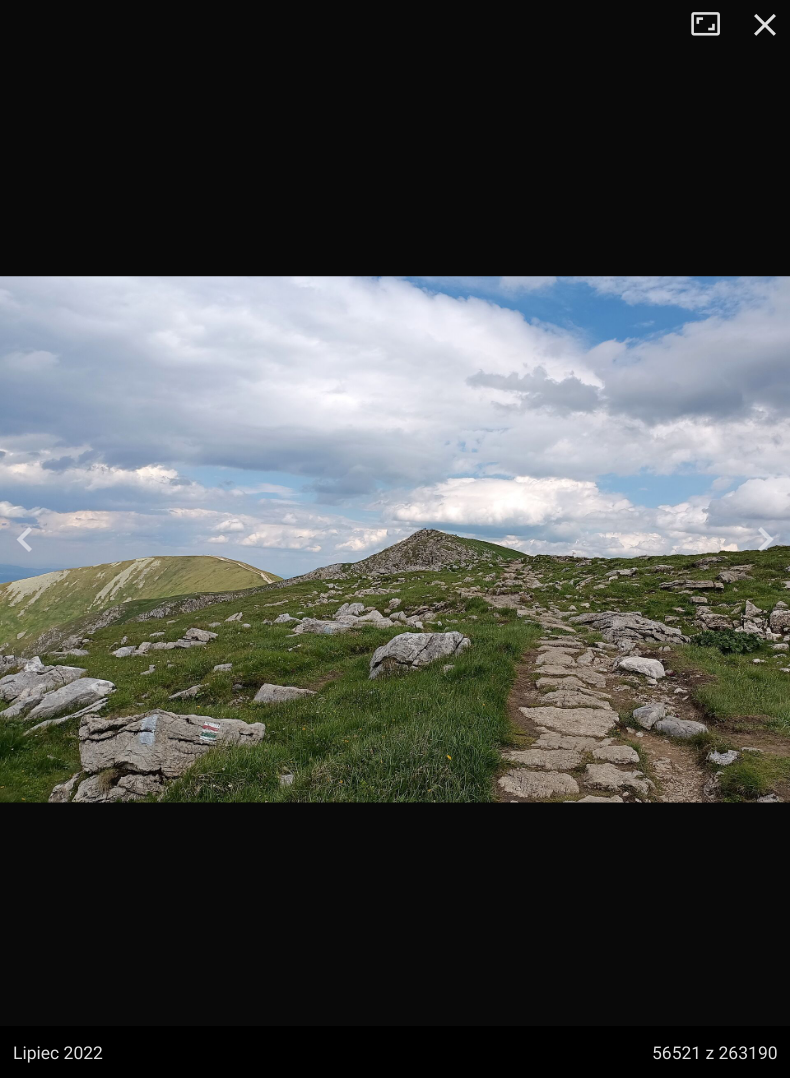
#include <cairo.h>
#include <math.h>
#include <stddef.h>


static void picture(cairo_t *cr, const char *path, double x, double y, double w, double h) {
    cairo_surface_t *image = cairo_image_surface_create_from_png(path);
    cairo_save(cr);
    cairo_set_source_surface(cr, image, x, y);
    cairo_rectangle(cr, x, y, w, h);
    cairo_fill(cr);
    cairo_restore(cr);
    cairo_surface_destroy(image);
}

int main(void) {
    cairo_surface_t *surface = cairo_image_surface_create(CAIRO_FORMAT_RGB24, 790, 1078);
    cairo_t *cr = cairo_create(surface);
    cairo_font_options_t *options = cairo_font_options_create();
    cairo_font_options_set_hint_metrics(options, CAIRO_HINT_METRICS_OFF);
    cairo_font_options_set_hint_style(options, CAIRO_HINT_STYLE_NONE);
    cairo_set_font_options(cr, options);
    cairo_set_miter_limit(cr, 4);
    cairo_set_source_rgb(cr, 0.039, 0.039, 0.039);
    cairo_paint(cr);
    picture(cr, "img1.png", 691, 12, 29, 24);
    picture(cr, "img2.png", 754, 14, 22, 22);
    picture(cr, "img3.png", 0, 276, 790, 527);
    cairo_set_source_rgba(cr, 1, 1, 1, 0.5);
    cairo_new_path(cr);
    cairo_move_to(cr, 32, 530);
    cairo_line_to(cr, 29, 527);
    cairo_line_to(cr, 16.5, 539.5);
    cairo_line_to(cr, 29, 552);
    cairo_line_to(cr, 32, 549);
    cairo_line_to(cr, 22.5, 539.5);
    cairo_close_path(cr);
    cairo_fill(cr);
    cairo_new_path(cr);
    cairo_move_to(cr, 761, 527);
    cairo_line_to(cr, 758, 530);
    cairo_line_to(cr, 767.5, 539.5);
    cairo_line_to(cr, 758, 549);
    cairo_line_to(cr, 761, 552);
    cairo_line_to(cr, 773.5, 539.5);
    cairo_close_path(cr);
    cairo_fill(cr);
    cairo_set_source_rgb(cr, 0, 0, 0);
    cairo_rectangle(cr, 0, 1026, 790, 52);
    cairo_fill(cr);
    cairo_select_font_face(cr, "Roboto", CAIRO_FONT_SLANT_NORMAL, CAIRO_FONT_WEIGHT_NORMAL);
    cairo_set_font_size(cr, 17.5);
    cairo_set_source_rgb(cr, 0.871, 0.871, 0.871);
    cairo_move_to(cr, 13, 1059);
    cairo_show_text(cr, "Lipiec 2022");
    cairo_move_to(cr, 652, 1059);
    cairo_show_text(cr, "56521 z 263190");
    cairo_surface_write_to_png(surface, "page.png");
    cairo_font_options_destroy(options);
    cairo_destroy(cr);
    cairo_surface_destroy(surface);
    return 0;
}
